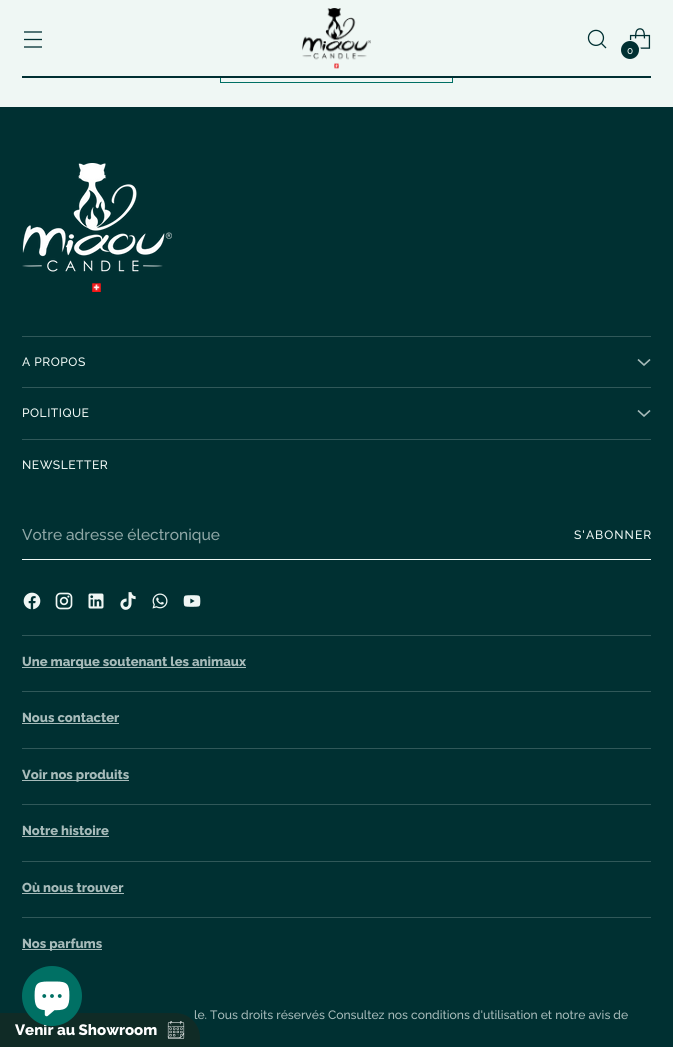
#include <cairo.h>
#include <math.h>
#include <stddef.h>


static void spaced_text(cairo_t *cr, double x, double y, const char *s, double letter, double word) {
    cairo_move_to(cr, x, y);
    while (*s) {
        char ch[5] = {0};
        int n = 0;
        do ch[n++] = *s++; while ((*s & 0xC0) == 0x80);
        cairo_show_text(cr, ch);
        cairo_rel_move_to(cr, letter + word * (*ch == ' '), 0);
    }
}

static void picture(cairo_t *cr, const char *path, double x, double y, double w, double h) {
    cairo_surface_t *image = cairo_image_surface_create_from_png(path);
    cairo_save(cr);
    cairo_set_source_surface(cr, image, x, y);
    cairo_rectangle(cr, x, y, w, h);
    cairo_fill(cr);
    cairo_restore(cr);
    cairo_surface_destroy(image);
}

int main(void) {
    cairo_surface_t *surface = cairo_image_surface_create(CAIRO_FORMAT_RGB24, 673, 1047);
    cairo_t *cr = cairo_create(surface);
    cairo_font_options_t *options = cairo_font_options_create();
    cairo_font_options_set_hint_metrics(options, CAIRO_HINT_METRICS_OFF);
    cairo_font_options_set_hint_style(options, CAIRO_HINT_STYLE_NONE);
    cairo_set_font_options(cr, options);
    cairo_set_miter_limit(cr, 4);
    cairo_set_source_rgb(cr, 0.937, 0.965, 0.957);
    cairo_paint(cr);
    cairo_rectangle(cr, 220.5, 35.5, 232, 47);
    cairo_set_source_rgb(cr, 0, 0.439, 0.392);
    cairo_set_line_width(cr, 1);
    cairo_stroke(cr);
    cairo_set_source_rgb(cr, 0.937, 0.965, 0.957);
    cairo_rectangle(cr, 220, 35, 233, 43);
    cairo_fill(cr);
    cairo_set_source_rgb(cr, 0, 0.188, 0.196);
    cairo_rectangle(cr, 22, 76, 629, 2);
    cairo_fill(cr);
    cairo_new_path(cr);
    cairo_move_to(cr, 24, 39.5);
    cairo_line_to(cr, 42, 39.5);
    cairo_move_to(cr, 24, 32);
    cairo_line_to(cr, 42, 32);
    cairo_move_to(cr, 24, 47);
    cairo_line_to(cr, 42, 47);
    cairo_set_line_width(cr, 1.3);
    cairo_stroke(cr);
    picture(cr, "img1.png", 302, 8, 69, 61);
    picture(cr, "img2.png", 587, 29, 20, 20);
    picture(cr, "img3.png", 629, 28, 22, 21);
    cairo_arc(cr, 630.5, 50.5, 9.5, 0, 2 * M_PI);
    cairo_set_source_rgb(cr, 0.937, 0.965, 0.957);
    cairo_set_line_width(cr, 2);
    cairo_stroke(cr);
    cairo_set_source_rgb(cr, 0, 0.188, 0.196);
    cairo_arc(cr, 630, 50, 9, 0, 2 * M_PI);
    cairo_fill(cr);
    cairo_select_font_face(cr, "Raleway Medium", CAIRO_FONT_SLANT_NORMAL, CAIRO_FONT_WEIGHT_NORMAL);
    cairo_set_font_size(cr, 10);
    cairo_set_source_rgb(cr, 0.937, 0.965, 0.957);
    cairo_move_to(cr, 627, 54);
    cairo_show_text(cr, "0");
    cairo_set_source_rgb(cr, 0, 0.188, 0.196);
    cairo_rectangle(cr, 0, 107, 673, 940);
    cairo_fill(cr);
    cairo_set_source_rgb(cr, 0.188, 0.345, 0.349);
    cairo_rectangle(cr, 22, 336, 629, 1);
    cairo_fill(cr);
    picture(cr, "img4.png", 22, 163, 150, 129);
    cairo_rectangle(cr, 22, 387, 629, 1);
    cairo_fill(cr);
    cairo_set_font_size(cr, 12.1);
    cairo_set_source_rgb(cr, 0.937, 0.965, 0.957);
    spaced_text(cr, 22, 366, "A PROPOS", 0.5, 0);
    cairo_new_path(cr);
    cairo_move_to(cr, 638, 359.5);
    cairo_line_to(cr, 644, 365);
    cairo_line_to(cr, 650, 359.5);
    cairo_move_to(cr, 638, 410.5);
    cairo_line_to(cr, 644, 416);
    cairo_line_to(cr, 650, 410.5);
    cairo_set_source_rgb(cr, 0.655, 0.733, 0.729);
    cairo_set_line_width(cr, 1.6);
    cairo_stroke(cr);
    cairo_set_source_rgb(cr, 0.188, 0.345, 0.349);
    cairo_rectangle(cr, 22, 439, 629, 1);
    cairo_fill(cr);
    cairo_set_source_rgb(cr, 0.937, 0.965, 0.957);
    spaced_text(cr, 22, 417, "POLITIQUE", 0.5, 0);
    cairo_set_source_rgb(cr, 0.188, 0.345, 0.349);
    cairo_rectangle(cr, 22, 635, 629, 1);
    cairo_fill(cr);
    cairo_set_source_rgb(cr, 0.937, 0.965, 0.957);
    spaced_text(cr, 22, 469, "NEWSLETTER", 0.5, 0);
    cairo_rectangle(cr, 22, 559, 629, 1);
    cairo_fill(cr);
    cairo_set_font_size(cr, 15.5);
    cairo_set_source_rgb(cr, 0.561, 0.655, 0.651);
    cairo_move_to(cr, 22, 540);
    cairo_show_text(cr, "Votre adresse électronique");
    cairo_set_font_size(cr, 12.1);
    cairo_set_source_rgb(cr, 0.937, 0.965, 0.957);
    spaced_text(cr, 574, 539, "S'ABONNER", 1, 0);
    picture(cr, "img5.png", 23, 592, 18, 18);
    picture(cr, "img6.png", 55, 592, 18, 18);
    picture(cr, "img7.png", 88, 593, 16, 16);
    picture(cr, "img8.png", 120, 592, 16, 18);
    picture(cr, "img9.png", 152, 593, 16, 16);
    picture(cr, "img10.png", 183, 595, 18, 12);
    cairo_set_source_rgb(cr, 0.188, 0.345, 0.349);
    cairo_rectangle(cr, 22, 691, 629, 1);
    cairo_fill(cr);
    cairo_set_source_rgb(cr, 0.655, 0.733, 0.729);
    cairo_rectangle(cr, 22, 667, 224, 1);
    cairo_fill(cr);
    cairo_select_font_face(cr, "Raleway ExtraBold", CAIRO_FONT_SLANT_NORMAL, CAIRO_FONT_WEIGHT_NORMAL);
    cairo_set_font_size(cr, 13);
    cairo_move_to(cr, 22, 666);
    cairo_show_text(cr, "Une marque soutenant les animaux");
    cairo_set_source_rgb(cr, 0.188, 0.345, 0.349);
    cairo_rectangle(cr, 22, 748, 629, 1);
    cairo_fill(cr);
    cairo_set_source_rgb(cr, 0.655, 0.733, 0.729);
    cairo_move_to(cr, 22, 722);
    cairo_show_text(cr, "Nous contacter");
    cairo_rectangle(cr, 22, 723, 97, 1);
    cairo_fill(cr);
    cairo_set_source_rgb(cr, 0.188, 0.345, 0.349);
    cairo_rectangle(cr, 22, 804, 629, 1);
    cairo_fill(cr);
    cairo_set_source_rgb(cr, 0.655, 0.733, 0.729);
    cairo_rectangle(cr, 22, 780, 107, 1);
    cairo_fill(cr);
    cairo_move_to(cr, 22, 779);
    cairo_show_text(cr, "Voir nos produits");
    cairo_set_source_rgb(cr, 0.188, 0.345, 0.349);
    cairo_rectangle(cr, 22, 861, 629, 1);
    cairo_fill(cr);
    cairo_set_source_rgb(cr, 0.655, 0.733, 0.729);
    cairo_move_to(cr, 22, 835);
    cairo_show_text(cr, "Notre histoire");
    cairo_rectangle(cr, 22, 836, 87, 1);
    cairo_fill(cr);
    cairo_set_source_rgb(cr, 0.188, 0.345, 0.349);
    cairo_rectangle(cr, 22, 917, 629, 1);
    cairo_fill(cr);
    cairo_set_source_rgb(cr, 0.655, 0.733, 0.729);
    cairo_move_to(cr, 22, 892);
    cairo_show_text(cr, "Où nous trouver");
    cairo_rectangle(cr, 22, 893, 102, 1);
    cairo_fill(cr);
    cairo_rectangle(cr, 22, 949, 80, 1);
    cairo_fill(cr);
    cairo_move_to(cr, 22, 948);
    cairo_show_text(cr, "Nos parfums");
    cairo_select_font_face(cr, "Raleway Medium", CAIRO_FONT_SLANT_NORMAL, CAIRO_FONT_WEIGHT_NORMAL);
    cairo_set_font_size(cr, 12.1);
    cairo_move_to(cr, 194, 1019);
    cairo_show_text(cr, "le. Tous droits réservés Consultez nos conditions d'utilisation et notre avis de");
    cairo_set_source_rgb(cr, 0.063, 0.169, 0.149);
    cairo_new_path(cr);
    cairo_move_to(cr, 0, 1013);
    cairo_line_to(cr, 175, 1013);
    cairo_curve_to(cr, 189, 1013, 200, 1024, 200, 1038);
    cairo_line_to(cr, 200, 1047);
    cairo_line_to(cr, 0, 1047);
    cairo_close_path(cr);
    cairo_fill(cr);
    cairo_select_font_face(cr, "Raleway ExtraBold", CAIRO_FONT_SLANT_NORMAL, CAIRO_FONT_WEIGHT_NORMAL);
    cairo_set_font_size(cr, 15);
    cairo_set_source_rgb(cr, 1, 1, 1);
    cairo_move_to(cr, 15, 1035);
    cairo_show_text(cr, "Venir au Showroom");
    cairo_set_source_rgb(cr, 0, 0.439, 0.392);
    cairo_new_path(cr);
    cairo_arc(cr, 52, 996, 30, 0, 2 * M_PI);
    cairo_fill(cr);
    picture(cr, "img11.png", 34, 981, 36, 36);
    picture(cr, "img12.png", 167, 1021, 18, 18);
    cairo_surface_write_to_png(surface, "page.png");
    cairo_font_options_destroy(options);
    cairo_destroy(cr);
    cairo_surface_destroy(surface);
    return 0;
}
